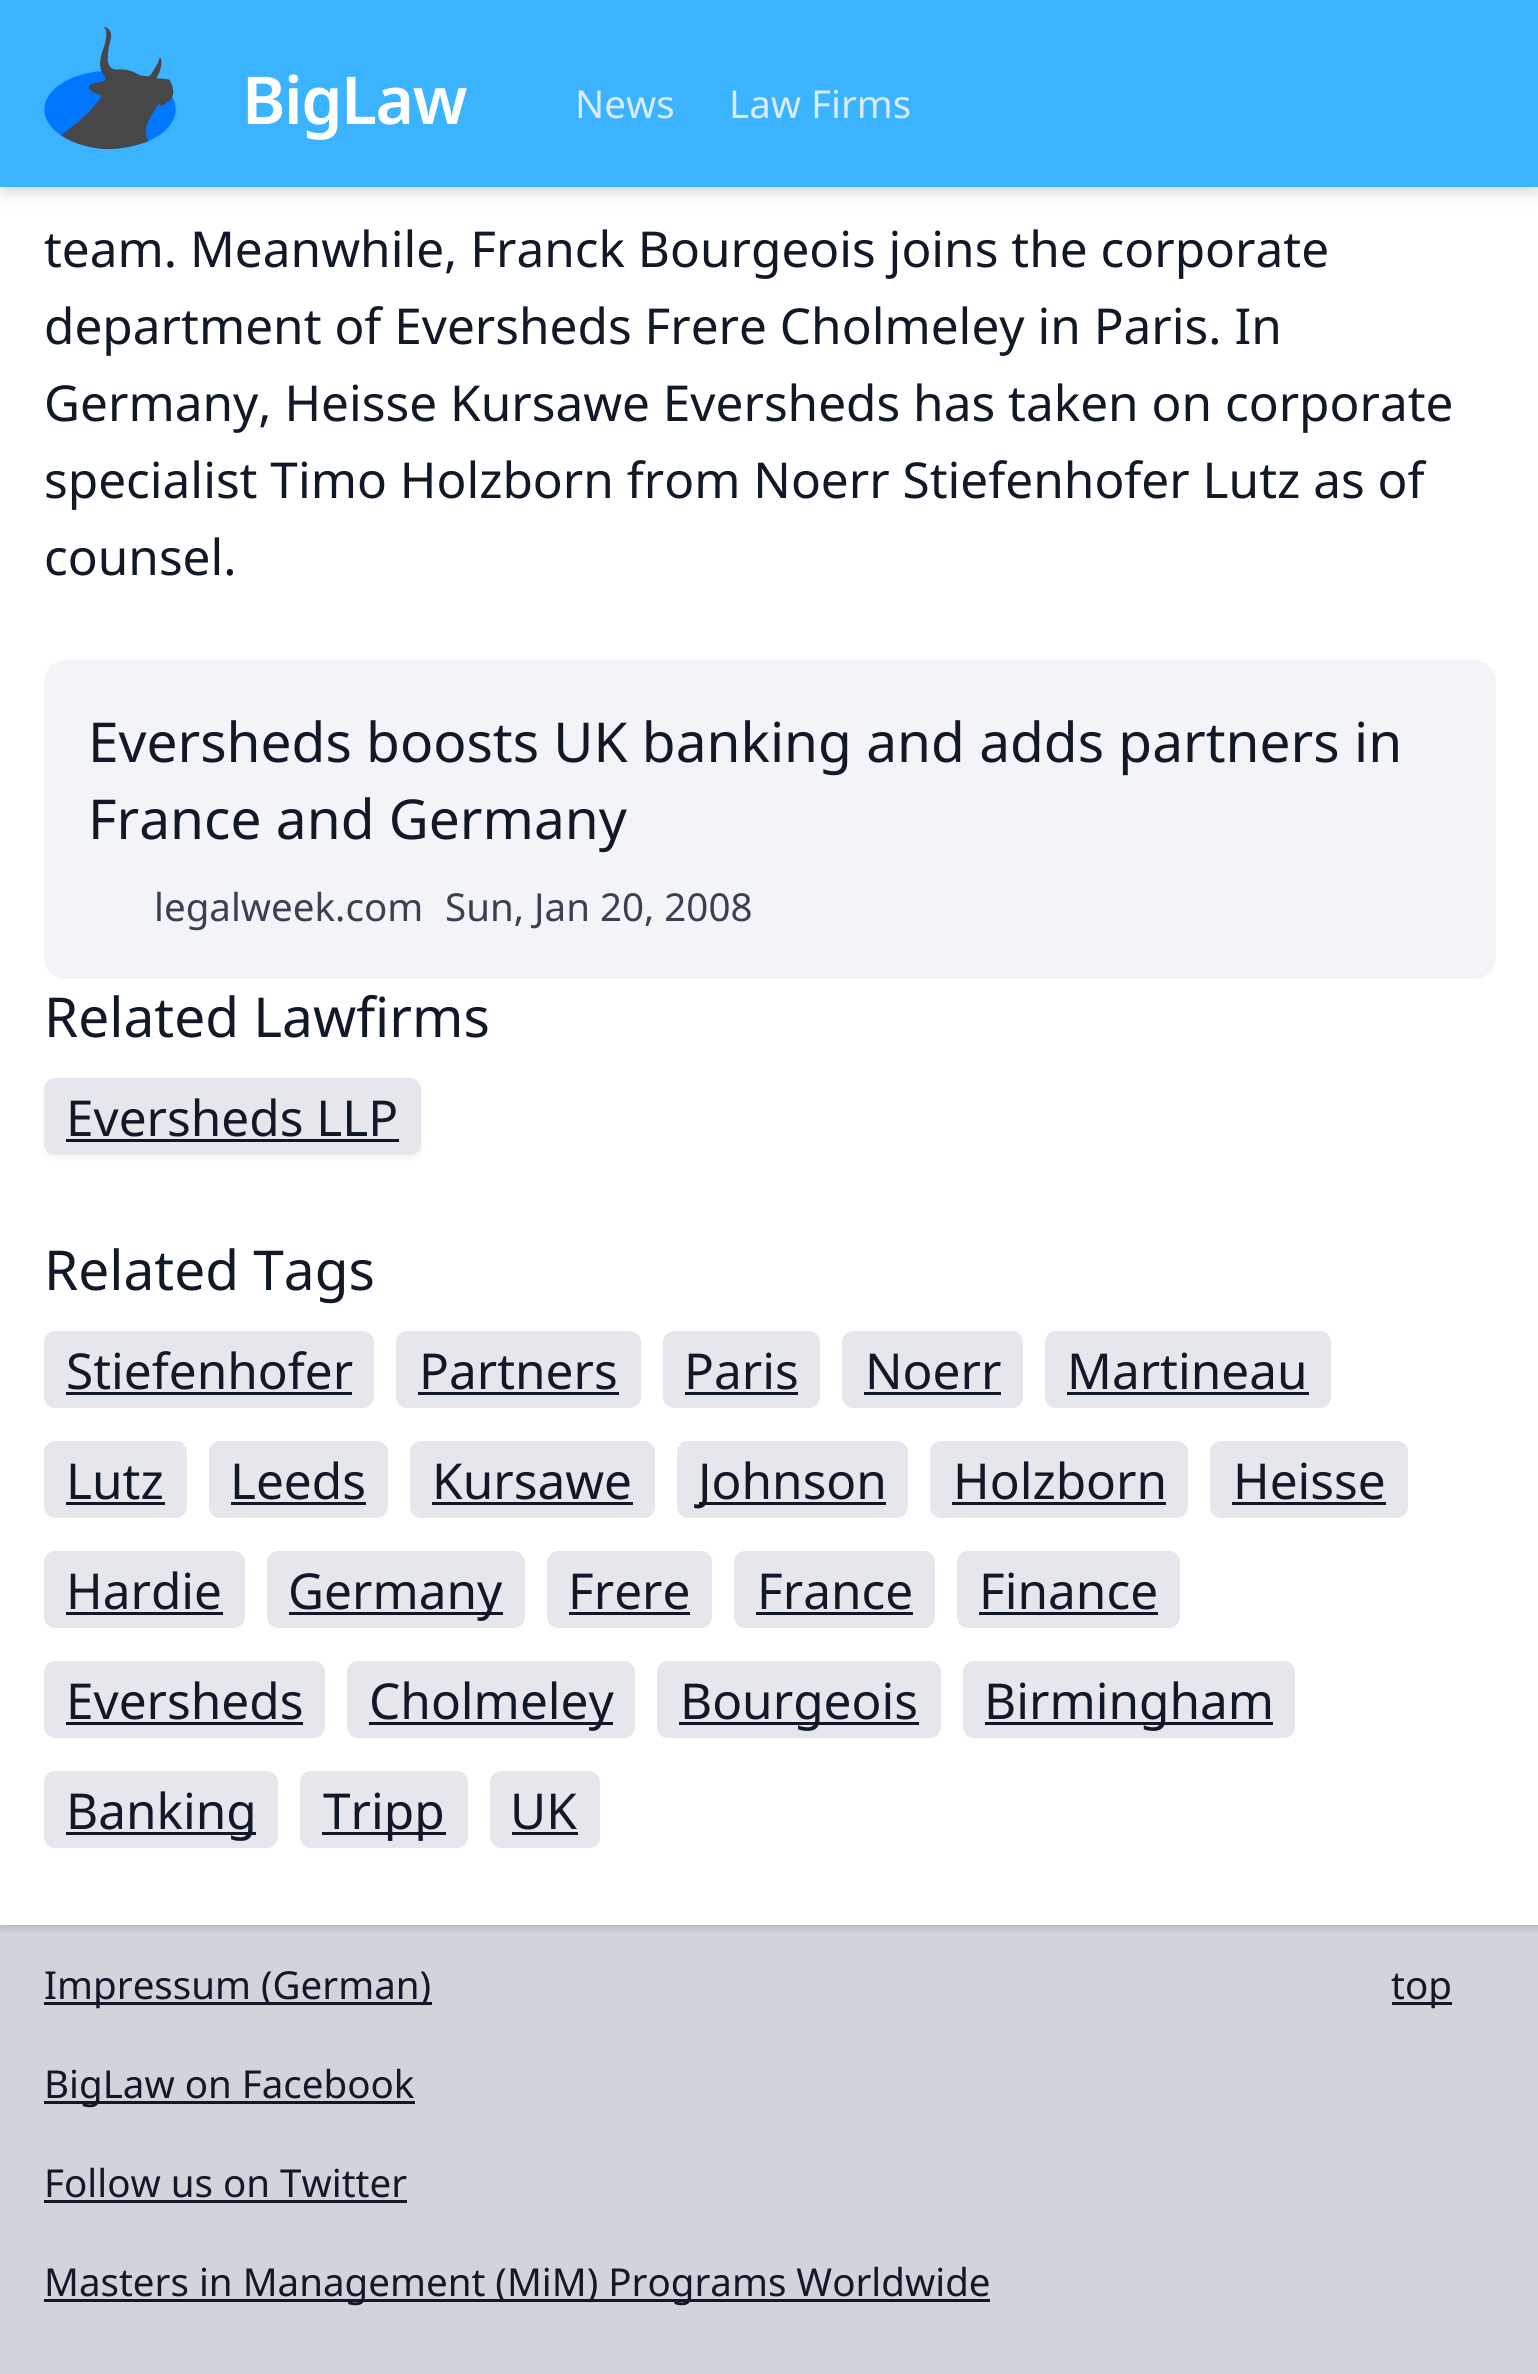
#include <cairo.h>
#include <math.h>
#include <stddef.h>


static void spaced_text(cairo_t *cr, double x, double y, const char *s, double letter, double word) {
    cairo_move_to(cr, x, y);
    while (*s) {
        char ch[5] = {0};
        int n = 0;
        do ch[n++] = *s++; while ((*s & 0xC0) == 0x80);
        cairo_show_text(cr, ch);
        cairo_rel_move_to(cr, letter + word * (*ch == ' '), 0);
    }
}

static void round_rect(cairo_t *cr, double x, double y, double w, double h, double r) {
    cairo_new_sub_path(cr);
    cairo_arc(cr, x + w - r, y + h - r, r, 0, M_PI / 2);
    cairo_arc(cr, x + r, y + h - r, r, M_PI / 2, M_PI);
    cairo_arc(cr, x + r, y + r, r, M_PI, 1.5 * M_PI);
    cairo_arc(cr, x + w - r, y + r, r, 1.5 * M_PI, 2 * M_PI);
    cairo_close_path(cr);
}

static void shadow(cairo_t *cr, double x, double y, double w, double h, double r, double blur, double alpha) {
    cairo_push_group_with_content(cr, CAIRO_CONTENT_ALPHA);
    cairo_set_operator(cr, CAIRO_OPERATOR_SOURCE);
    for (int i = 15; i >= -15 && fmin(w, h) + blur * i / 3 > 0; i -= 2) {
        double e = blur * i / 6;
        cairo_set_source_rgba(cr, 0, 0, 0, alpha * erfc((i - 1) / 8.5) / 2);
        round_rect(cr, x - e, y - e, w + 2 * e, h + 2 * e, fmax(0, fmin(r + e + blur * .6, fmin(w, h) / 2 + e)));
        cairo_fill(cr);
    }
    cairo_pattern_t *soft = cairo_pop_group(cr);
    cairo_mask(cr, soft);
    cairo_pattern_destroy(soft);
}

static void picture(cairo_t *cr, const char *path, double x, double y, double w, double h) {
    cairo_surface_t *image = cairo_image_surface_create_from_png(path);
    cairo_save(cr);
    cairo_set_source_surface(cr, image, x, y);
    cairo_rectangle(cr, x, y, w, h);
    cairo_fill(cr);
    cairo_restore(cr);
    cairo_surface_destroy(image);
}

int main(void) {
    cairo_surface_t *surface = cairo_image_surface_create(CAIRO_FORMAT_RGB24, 1538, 2374);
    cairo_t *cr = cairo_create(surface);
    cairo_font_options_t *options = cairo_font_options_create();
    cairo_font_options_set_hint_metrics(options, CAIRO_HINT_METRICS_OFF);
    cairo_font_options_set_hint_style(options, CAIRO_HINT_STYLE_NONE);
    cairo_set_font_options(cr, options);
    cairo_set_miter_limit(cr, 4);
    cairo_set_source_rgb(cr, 0.82, 0.835, 0.859);
    cairo_paint(cr);
    cairo_set_source_rgb(cr, 0, 0, 0);
    shadow(cr, 0, -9, 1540, 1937, 0, 3, 0.06);
    shadow(cr, 0, -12, 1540, 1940, 0, 4, 0.1);
    cairo_set_source_rgb(cr, 1, 1, 1);
    cairo_rectangle(cr, 0, 187, 1538, 1738);
    cairo_fill(cr);
    cairo_set_source_rgb(cr, 0, 0, 0);
    shadow(cr, 3, 8, 1534, 182, 0, 5.5, 0.06);
    shadow(cr, 3, 14, 1534, 181, 0, 8, 0.1);
    cairo_set_source_rgb(cr, 0.235, 0.702, 1);
    cairo_rectangle(cr, 0, 0, 1538, 187);
    cairo_fill(cr);
    picture(cr, "img1.png", 44, 26, 132, 123);
    cairo_select_font_face(cr, "Noto Sans SemiBold", CAIRO_FONT_SLANT_NORMAL, CAIRO_FONT_WEIGHT_NORMAL);
    cairo_set_font_size(cr, 66);
    cairo_set_source_rgb(cr, 1, 1, 1);
    spaced_text(cr, 242, 124, "BigLaw", -1.5, 0);
    cairo_select_font_face(cr, "Noto Sans", CAIRO_FONT_SLANT_NORMAL, CAIRO_FONT_WEIGHT_NORMAL);
    cairo_set_font_size(cr, 38.5);
    cairo_set_source_rgb(cr, 0.859, 0.918, 0.996);
    cairo_move_to(cr, 575, 118);
    cairo_show_text(cr, "News");
    cairo_move_to(cr, 729, 118);
    cairo_show_text(cr, "Law Firms");
    cairo_set_font_size(cr, 49.5);
    cairo_set_source_rgb(cr, 0.067, 0.094, 0.153);
    cairo_move_to(cr, 44, 267);
    cairo_show_text(cr, "team. Meanwhile, Franck Bourgeois joins the corporate");
    cairo_move_to(cr, 44, 344);
    cairo_show_text(cr, "department of Eversheds Frere Cholmeley in Paris. In");
    cairo_move_to(cr, 44, 421);
    cairo_show_text(cr, "Germany, Heisse Kursawe Eversheds has taken on corporate");
    cairo_move_to(cr, 44, 498);
    cairo_show_text(cr, "specialist Timo Holzborn from Noerr Stiefenhofer Lutz as of");
    cairo_move_to(cr, 44, 575);
    cairo_show_text(cr, "counsel.");
    cairo_set_source_rgb(cr, 0.953, 0.957, 0.965);
    round_rect(cr, 44, 660, 1452, 319, 22);
    cairo_fill(cr);
    cairo_set_font_size(cr, 55);
    cairo_set_source_rgb(cr, 0.067, 0.094, 0.153);
    cairo_move_to(cr, 88, 762);
    cairo_show_text(cr, "Eversheds boosts UK banking and adds partners in");
    cairo_move_to(cr, 88, 839);
    cairo_show_text(cr, "France and Germany");
    cairo_set_font_size(cr, 38.5);
    cairo_set_source_rgb(cr, 0.216, 0.255, 0.318);
    cairo_move_to(cr, 154, 921);
    cairo_show_text(cr, "legalweek.com");
    cairo_move_to(cr, 445, 921);
    cairo_show_text(cr, "Sun, Jan 20, 2008");
    cairo_set_font_size(cr, 55);
    cairo_set_source_rgb(cr, 0.067, 0.094, 0.153);
    cairo_move_to(cr, 44, 1037);
    cairo_show_text(cr, "Related Lawfirms");
    cairo_set_source_rgb(cr, 0, 0, 0);
    shadow(cr, 44, 1081, 377, 77, 11, 3, 0.05);
    cairo_set_source_rgb(cr, 0.898, 0.906, 0.922);
    round_rect(cr, 44, 1078, 377, 77, 11);
    cairo_fill(cr);
    cairo_set_font_size(cr, 49.5);
    cairo_set_source_rgb(cr, 0.067, 0.094, 0.153);
    cairo_move_to(cr, 66, 1136);
    cairo_show_text(cr, "Eversheds LLP");
    cairo_rectangle(cr, 66, 1139, 333, 3);
    cairo_fill(cr);
    cairo_set_font_size(cr, 55);
    cairo_move_to(cr, 44, 1290);
    cairo_show_text(cr, "Related Tags");
    cairo_set_source_rgb(cr, 0.898, 0.906, 0.922);
    round_rect(cr, 44, 1331, 330, 77, 11);
    cairo_fill(cr);
    cairo_set_font_size(cr, 49.5);
    cairo_set_source_rgb(cr, 0.067, 0.094, 0.153);
    cairo_move_to(cr, 66, 1389);
    cairo_show_text(cr, "Stiefenhofer");
    cairo_rectangle(cr, 66, 1392, 286, 3);
    cairo_fill(cr);
    cairo_set_source_rgb(cr, 0.898, 0.906, 0.922);
    round_rect(cr, 396, 1331, 245, 77, 11);
    cairo_fill(cr);
    cairo_set_source_rgb(cr, 0.067, 0.094, 0.153);
    cairo_move_to(cr, 419, 1389);
    cairo_show_text(cr, "Partners");
    cairo_rectangle(cr, 418, 1392, 201, 3);
    cairo_fill(cr);
    cairo_set_source_rgb(cr, 0.898, 0.906, 0.922);
    round_rect(cr, 663, 1331, 157, 77, 11);
    cairo_fill(cr);
    cairo_set_source_rgb(cr, 0.067, 0.094, 0.153);
    cairo_move_to(cr, 684, 1389);
    cairo_show_text(cr, "Paris");
    cairo_rectangle(cr, 685, 1392, 113, 3);
    cairo_fill(cr);
    cairo_set_source_rgb(cr, 0.898, 0.906, 0.922);
    round_rect(cr, 842, 1331, 181, 77, 11);
    cairo_fill(cr);
    cairo_set_source_rgb(cr, 0.067, 0.094, 0.153);
    cairo_move_to(cr, 865, 1389);
    cairo_show_text(cr, "Noerr");
    cairo_rectangle(cr, 864, 1392, 137, 3);
    cairo_fill(cr);
    cairo_set_source_rgb(cr, 0.898, 0.906, 0.922);
    round_rect(cr, 1045, 1331, 286, 77, 11);
    cairo_fill(cr);
    cairo_set_source_rgb(cr, 0.067, 0.094, 0.153);
    cairo_move_to(cr, 1067, 1389);
    cairo_show_text(cr, "Martineau");
    cairo_rectangle(cr, 1067, 1392, 242, 3);
    cairo_fill(cr);
    cairo_set_source_rgb(cr, 0.898, 0.906, 0.922);
    round_rect(cr, 44, 1441, 143, 77, 11);
    cairo_fill(cr);
    cairo_set_source_rgb(cr, 0.067, 0.094, 0.153);
    cairo_move_to(cr, 66, 1499);
    cairo_show_text(cr, "Lutz");
    cairo_rectangle(cr, 66, 1502, 99, 3);
    cairo_fill(cr);
    cairo_set_source_rgb(cr, 0.898, 0.906, 0.922);
    round_rect(cr, 209, 1441, 179, 77, 11);
    cairo_fill(cr);
    cairo_set_source_rgb(cr, 0.067, 0.094, 0.153);
    cairo_move_to(cr, 230, 1499);
    cairo_show_text(cr, "Leeds");
    cairo_rectangle(cr, 231, 1502, 135, 3);
    cairo_fill(cr);
    cairo_set_source_rgb(cr, 0.898, 0.906, 0.922);
    round_rect(cr, 410, 1441, 245, 77, 11);
    cairo_fill(cr);
    cairo_set_source_rgb(cr, 0.067, 0.094, 0.153);
    cairo_move_to(cr, 432, 1499);
    cairo_show_text(cr, "Kursawe");
    cairo_rectangle(cr, 432, 1502, 201, 3);
    cairo_fill(cr);
    cairo_set_source_rgb(cr, 0.898, 0.906, 0.922);
    round_rect(cr, 677, 1441, 231, 77, 11);
    cairo_fill(cr);
    cairo_set_source_rgb(cr, 0.067, 0.094, 0.153);
    cairo_rectangle(cr, 699, 1502, 187, 3);
    cairo_fill(cr);
    cairo_move_to(cr, 698, 1499);
    cairo_show_text(cr, "Johnson");
    cairo_set_source_rgb(cr, 0.898, 0.906, 0.922);
    round_rect(cr, 930, 1441, 258, 77, 11);
    cairo_fill(cr);
    cairo_set_source_rgb(cr, 0.067, 0.094, 0.153);
    cairo_move_to(cr, 953, 1499);
    cairo_show_text(cr, "Holzborn");
    cairo_rectangle(cr, 952, 1502, 214, 3);
    cairo_fill(cr);
    cairo_set_source_rgb(cr, 0.898, 0.906, 0.922);
    round_rect(cr, 1210, 1441, 198, 77, 11);
    cairo_fill(cr);
    cairo_set_source_rgb(cr, 0.067, 0.094, 0.153);
    cairo_move_to(cr, 1233, 1499);
    cairo_show_text(cr, "Heisse");
    cairo_rectangle(cr, 1232, 1502, 154, 3);
    cairo_fill(cr);
    cairo_set_source_rgb(cr, 0.898, 0.906, 0.922);
    round_rect(cr, 44, 1551, 201, 77, 11);
    cairo_fill(cr);
    cairo_set_source_rgb(cr, 0.067, 0.094, 0.153);
    cairo_move_to(cr, 66, 1609);
    cairo_show_text(cr, "Hardie");
    cairo_rectangle(cr, 66, 1612, 157, 3);
    cairo_fill(cr);
    cairo_set_source_rgb(cr, 0.898, 0.906, 0.922);
    round_rect(cr, 267, 1551, 258, 77, 11);
    cairo_fill(cr);
    cairo_set_source_rgb(cr, 0.067, 0.094, 0.153);
    cairo_rectangle(cr, 289, 1612, 214, 3);
    cairo_fill(cr);
    cairo_move_to(cr, 288, 1609);
    cairo_show_text(cr, "Germany");
    cairo_set_source_rgb(cr, 0.898, 0.906, 0.922);
    round_rect(cr, 547, 1551, 165, 77, 11);
    cairo_fill(cr);
    cairo_set_source_rgb(cr, 0.067, 0.094, 0.153);
    cairo_move_to(cr, 568, 1609);
    cairo_show_text(cr, "Frere");
    cairo_rectangle(cr, 569, 1612, 121, 3);
    cairo_fill(cr);
    cairo_set_source_rgb(cr, 0.898, 0.906, 0.922);
    round_rect(cr, 734, 1551, 201, 77, 11);
    cairo_fill(cr);
    cairo_set_source_rgb(cr, 0.067, 0.094, 0.153);
    cairo_move_to(cr, 757, 1609);
    cairo_show_text(cr, "France");
    cairo_rectangle(cr, 756, 1612, 157, 3);
    cairo_fill(cr);
    cairo_set_source_rgb(cr, 0.898, 0.906, 0.922);
    round_rect(cr, 957, 1551, 223, 77, 11);
    cairo_fill(cr);
    cairo_set_source_rgb(cr, 0.067, 0.094, 0.153);
    cairo_move_to(cr, 979, 1609);
    cairo_show_text(cr, "Finance");
    cairo_rectangle(cr, 979, 1612, 179, 3);
    cairo_fill(cr);
    cairo_set_source_rgb(cr, 0.898, 0.906, 0.922);
    round_rect(cr, 44, 1661, 281, 77, 11);
    cairo_fill(cr);
    cairo_set_source_rgb(cr, 0.067, 0.094, 0.153);
    cairo_move_to(cr, 66, 1719);
    cairo_show_text(cr, "Eversheds");
    cairo_rectangle(cr, 66, 1722, 237, 3);
    cairo_fill(cr);
    cairo_set_source_rgb(cr, 0.898, 0.906, 0.922);
    round_rect(cr, 347, 1661, 288, 77, 11);
    cairo_fill(cr);
    cairo_set_source_rgb(cr, 0.067, 0.094, 0.153);
    cairo_rectangle(cr, 369, 1722, 244, 3);
    cairo_fill(cr);
    cairo_move_to(cr, 369, 1719);
    cairo_show_text(cr, "Cholmeley");
    cairo_set_source_rgb(cr, 0.898, 0.906, 0.922);
    round_rect(cr, 657, 1661, 284, 77, 11);
    cairo_fill(cr);
    cairo_set_source_rgb(cr, 0.067, 0.094, 0.153);
    cairo_rectangle(cr, 679, 1722, 240, 3);
    cairo_fill(cr);
    cairo_move_to(cr, 680, 1719);
    cairo_show_text(cr, "Bourgeois");
    cairo_set_source_rgb(cr, 0.898, 0.906, 0.922);
    round_rect(cr, 963, 1661, 332, 77, 11);
    cairo_fill(cr);
    cairo_set_source_rgb(cr, 0.067, 0.094, 0.153);
    cairo_rectangle(cr, 985, 1722, 288, 3);
    cairo_fill(cr);
    cairo_move_to(cr, 984, 1719);
    cairo_show_text(cr, "Birmingham");
    cairo_set_source_rgb(cr, 0.898, 0.906, 0.922);
    round_rect(cr, 44, 1771, 234, 77, 11);
    cairo_fill(cr);
    cairo_set_source_rgb(cr, 0.067, 0.094, 0.153);
    cairo_rectangle(cr, 66, 1832, 190, 3);
    cairo_fill(cr);
    cairo_move_to(cr, 66, 1829);
    cairo_show_text(cr, "Banking");
    cairo_set_source_rgb(cr, 0.898, 0.906, 0.922);
    round_rect(cr, 300, 1771, 168, 77, 11);
    cairo_fill(cr);
    cairo_set_source_rgb(cr, 0.067, 0.094, 0.153);
    cairo_rectangle(cr, 322, 1832, 124, 3);
    cairo_fill(cr);
    cairo_move_to(cr, 323, 1829);
    cairo_show_text(cr, "Tripp");
    cairo_set_source_rgb(cr, 0.898, 0.906, 0.922);
    round_rect(cr, 490, 1771, 110, 77, 11);
    cairo_fill(cr);
    cairo_set_source_rgb(cr, 0.067, 0.094, 0.153);
    cairo_move_to(cr, 510, 1829);
    cairo_show_text(cr, "UK");
    cairo_rectangle(cr, 512, 1832, 66, 3);
    cairo_fill(cr);
    cairo_rectangle(cr, 44, 2002, 388, 3);
    cairo_fill(cr);
    cairo_set_font_size(cr, 38.5);
    cairo_move_to(cr, 44, 1999);
    cairo_show_text(cr, "Impressum (German)");
    cairo_rectangle(cr, 44, 2101, 371, 3);
    cairo_fill(cr);
    cairo_move_to(cr, 44, 2098);
    cairo_show_text(cr, "BigLaw on Facebook");
    cairo_move_to(cr, 44, 2197);
    cairo_show_text(cr, "Follow us on Twitter");
    cairo_rectangle(cr, 44, 2200, 363, 3);
    cairo_fill(cr);
    cairo_rectangle(cr, 44, 2299, 946, 3);
    cairo_fill(cr);
    cairo_move_to(cr, 44, 2296);
    cairo_show_text(cr, "Masters in Management (MiM) Programs Worldwide");
    cairo_rectangle(cr, 1392, 2002, 60, 3);
    cairo_fill(cr);
    cairo_move_to(cr, 1391, 1999);
    cairo_show_text(cr, "top");
    cairo_surface_write_to_png(surface, "page.png");
    cairo_font_options_destroy(options);
    cairo_destroy(cr);
    cairo_surface_destroy(surface);
    return 0;
}
